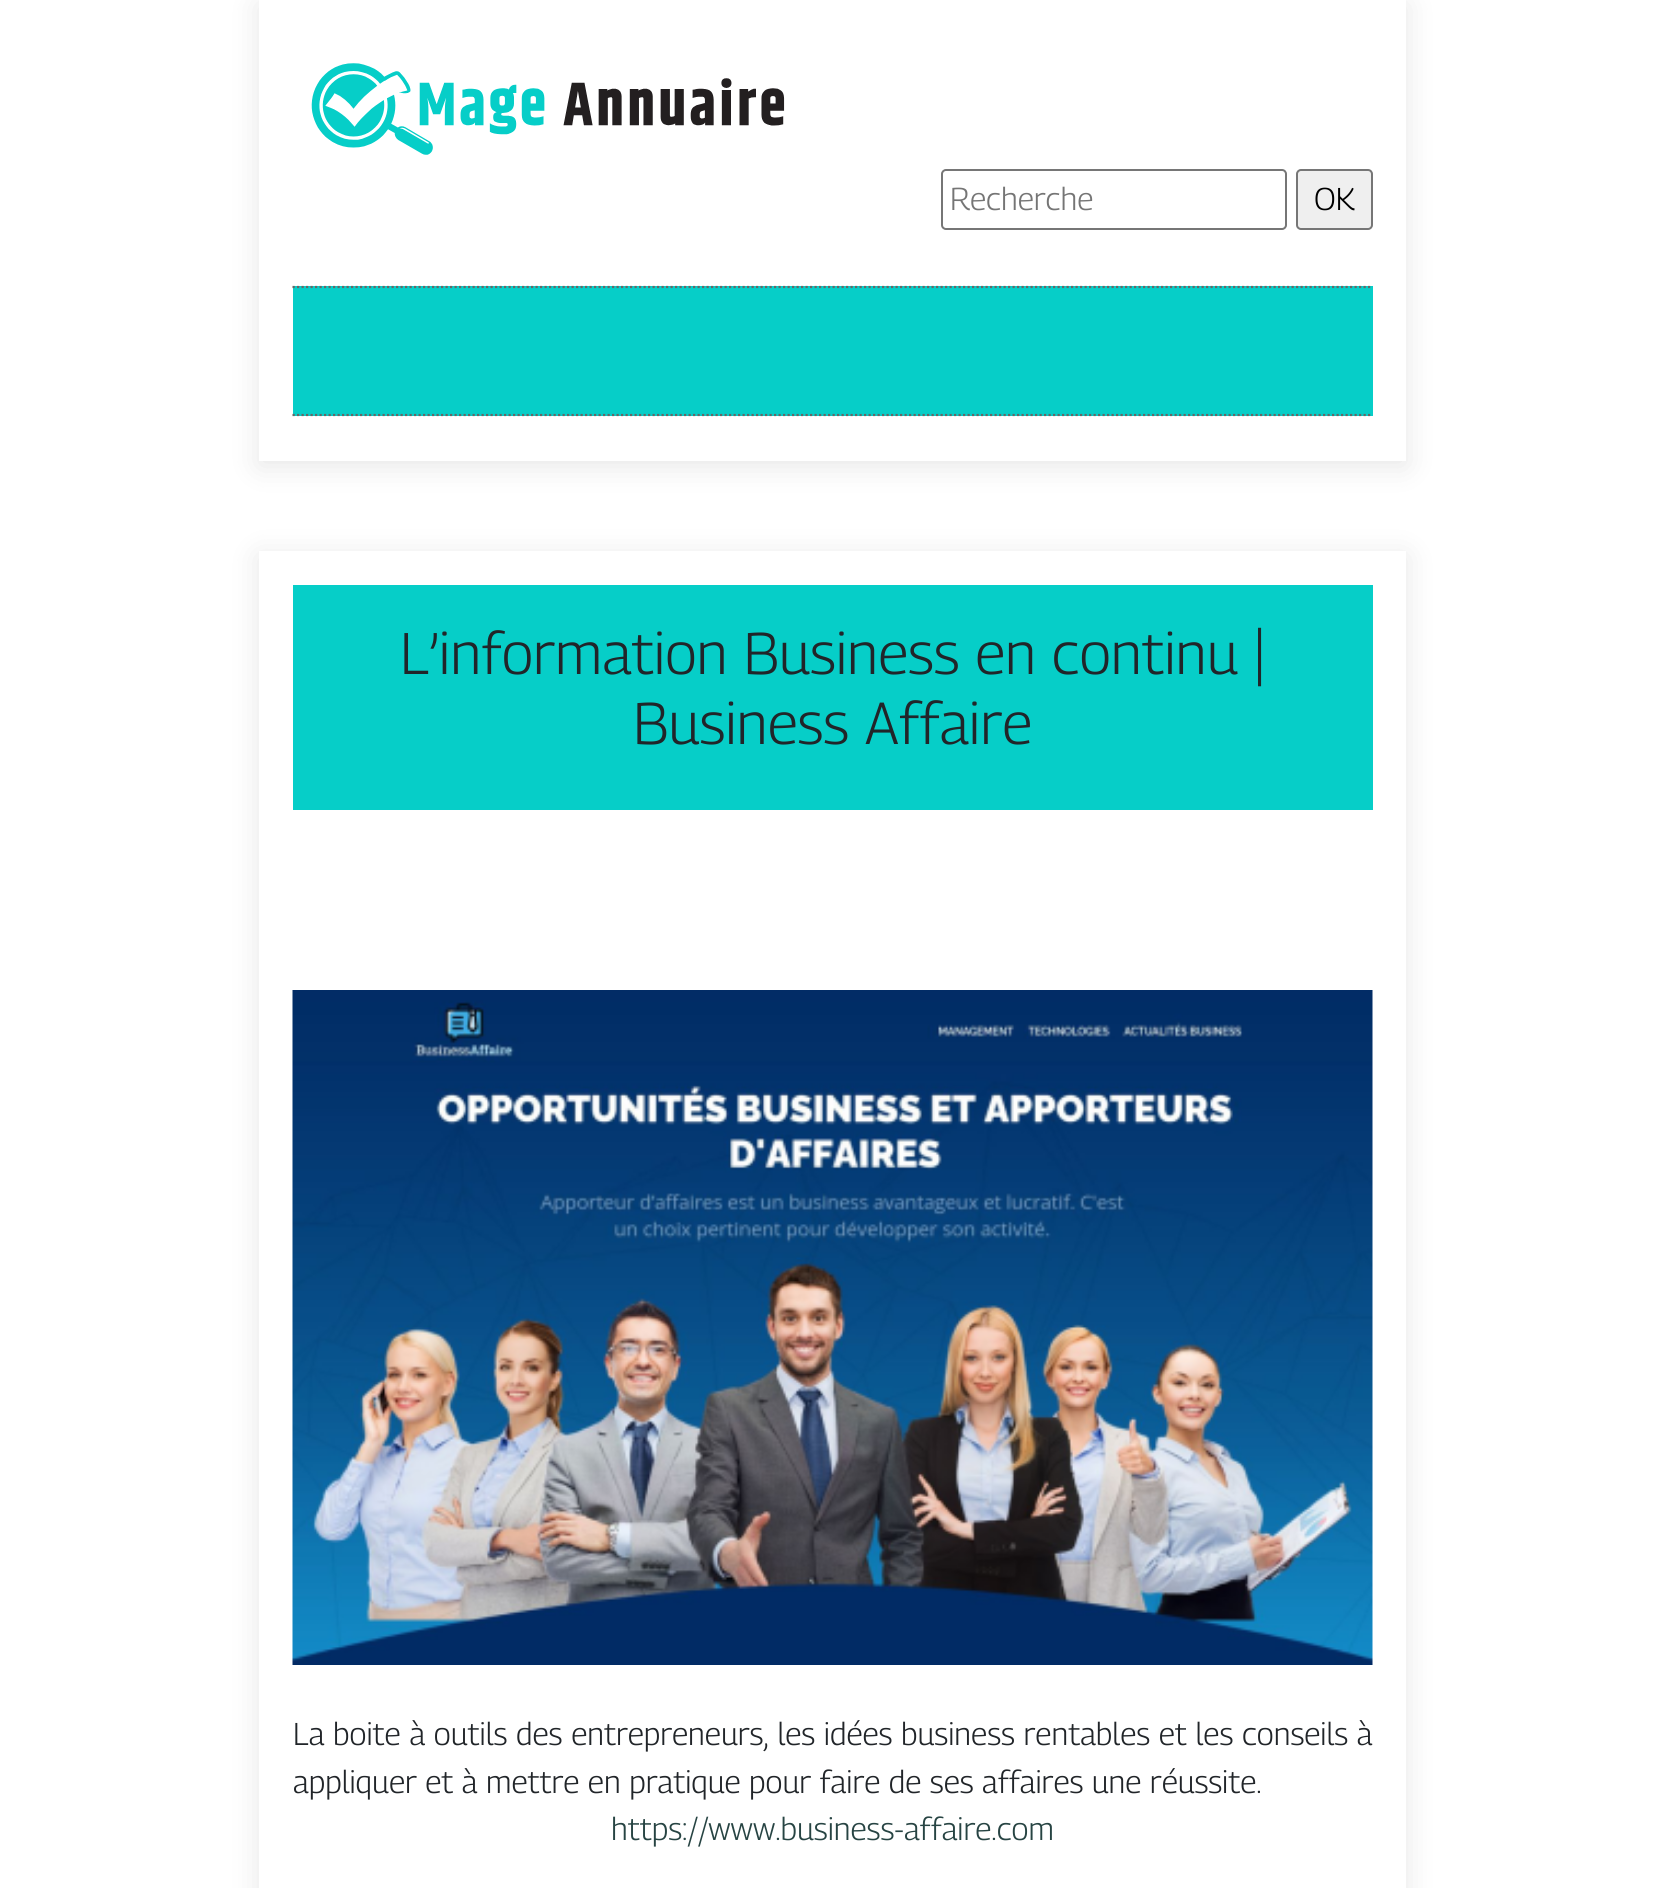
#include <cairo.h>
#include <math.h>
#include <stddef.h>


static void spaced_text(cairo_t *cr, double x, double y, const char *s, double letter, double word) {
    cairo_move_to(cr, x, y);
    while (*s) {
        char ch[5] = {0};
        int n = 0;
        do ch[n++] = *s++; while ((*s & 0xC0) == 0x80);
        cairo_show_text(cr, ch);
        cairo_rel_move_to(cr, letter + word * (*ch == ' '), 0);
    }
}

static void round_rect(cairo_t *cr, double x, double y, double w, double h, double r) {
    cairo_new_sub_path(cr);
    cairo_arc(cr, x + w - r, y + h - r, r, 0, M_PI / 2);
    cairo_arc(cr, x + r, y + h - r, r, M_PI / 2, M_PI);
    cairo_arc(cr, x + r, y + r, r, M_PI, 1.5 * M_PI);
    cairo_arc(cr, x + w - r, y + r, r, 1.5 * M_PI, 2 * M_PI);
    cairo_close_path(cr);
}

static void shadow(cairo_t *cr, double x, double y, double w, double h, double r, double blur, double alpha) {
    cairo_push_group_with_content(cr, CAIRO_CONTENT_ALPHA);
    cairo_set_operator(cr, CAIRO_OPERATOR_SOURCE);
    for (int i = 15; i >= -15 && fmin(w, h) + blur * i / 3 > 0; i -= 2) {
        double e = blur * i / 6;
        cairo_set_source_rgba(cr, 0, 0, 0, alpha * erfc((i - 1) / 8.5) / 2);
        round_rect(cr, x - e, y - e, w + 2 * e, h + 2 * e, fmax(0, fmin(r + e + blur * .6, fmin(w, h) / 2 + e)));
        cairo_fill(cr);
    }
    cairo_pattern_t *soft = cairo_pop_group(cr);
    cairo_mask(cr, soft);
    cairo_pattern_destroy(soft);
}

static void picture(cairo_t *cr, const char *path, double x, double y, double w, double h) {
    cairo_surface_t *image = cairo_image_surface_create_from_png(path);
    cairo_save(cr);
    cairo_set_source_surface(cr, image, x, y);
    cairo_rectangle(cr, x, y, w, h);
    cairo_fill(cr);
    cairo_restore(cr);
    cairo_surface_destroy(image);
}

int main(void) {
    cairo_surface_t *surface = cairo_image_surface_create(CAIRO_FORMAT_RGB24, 1663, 1888);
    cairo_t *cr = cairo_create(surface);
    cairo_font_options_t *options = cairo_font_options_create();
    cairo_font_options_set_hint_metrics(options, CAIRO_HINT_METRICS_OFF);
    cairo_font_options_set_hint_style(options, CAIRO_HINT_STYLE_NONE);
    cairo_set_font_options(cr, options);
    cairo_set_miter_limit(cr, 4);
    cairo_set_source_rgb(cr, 1, 1, 1);
    cairo_paint(cr);
    cairo_save(cr);
    cairo_set_fill_rule(cr, CAIRO_FILL_RULE_EVEN_ODD);
    cairo_new_path(cr);
    cairo_move_to(cr, 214, 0);
    cairo_line_to(cr, 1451, 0);
    cairo_line_to(cr, 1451, 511);
    cairo_line_to(cr, 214, 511);
    cairo_close_path(cr);
    cairo_move_to(cr, 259, 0);
    cairo_line_to(cr, 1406, 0);
    cairo_line_to(cr, 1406, 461);
    cairo_line_to(cr, 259, 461);
    cairo_close_path(cr);
    cairo_clip(cr);
    cairo_set_source_rgb(cr, 0, 0, 0);
    shadow(cr, 259, 5, 1147, 461, 0, 14.5, 0.1);
    cairo_restore(cr);
    picture(cr, "img1.png", 311, 63, 474, 92);
    round_rect(cr, 942, 170, 344, 59, 4);
    cairo_set_source_rgb(cr, 0.463, 0.463, 0.463);
    cairo_stroke(cr);
    cairo_select_font_face(cr, "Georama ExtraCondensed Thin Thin", CAIRO_FONT_SLANT_NORMAL, CAIRO_FONT_WEIGHT_NORMAL);
    cairo_set_font_size(cr, 31.5);
    cairo_set_source_rgb(cr, 0.459, 0.459, 0.459);
    cairo_move_to(cr, 950, 210);
    cairo_show_text(cr, "Recherche");
    cairo_set_source_rgb(cr, 0.937, 0.937, 0.937);
    round_rect(cr, 1297, 170, 75, 59, 4);
    cairo_fill_preserve(cr);
    cairo_set_source_rgb(cr, 0.463, 0.463, 0.463);
    cairo_stroke(cr);
    cairo_set_source_rgb(cr, 0, 0, 0);
    cairo_move_to(cr, 1314, 210);
    cairo_show_text(cr, "OK");
    cairo_set_source_rgb(cr, 0.024, 0.808, 0.784);
    cairo_rectangle(cr, 293, 286, 1080, 130);
    cairo_fill(cr);
    cairo_new_path(cr);
    cairo_move_to(cr, 292.5, 287);
    cairo_line_to(cr, 1372.5, 287);
    cairo_set_source_rgb(cr, 0.4, 0.4, 0.4);
    cairo_set_line_width(cr, 2.2);
    cairo_set_dash(cr, (double[]){2.25, 2.25}, 2, 0);
    cairo_stroke(cr);
    cairo_new_path(cr);
    cairo_move_to(cr, 292.5, 415);
    cairo_line_to(cr, 1372.5, 415);
    cairo_stroke(cr);
    cairo_set_source_rgb(cr, 0, 0, 0);
    shadow(cr, 259, 556, 1147, 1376, 0, 14.5, 0.1);
    cairo_set_source_rgb(cr, 1, 1, 1);
    cairo_rectangle(cr, 259, 551, 1147, 1337);
    cairo_fill(cr);
    cairo_set_source_rgb(cr, 0.024, 0.808, 0.784);
    cairo_rectangle(cr, 293, 585, 1080, 225);
    cairo_fill(cr);
    cairo_set_font_size(cr, 58.5);
    cairo_set_source_rgb(cr, 0.129, 0.145, 0.161);
    cairo_move_to(cr, 400, 674);
    cairo_show_text(cr, "L’information Business en continu |");
    cairo_move_to(cr, 633, 744);
    cairo_show_text(cr, "Business Affaire");
    picture(cr, "img2.png", 292, 990, 1081, 675);
    cairo_set_font_size(cr, 31.5);
    spaced_text(cr, 293, 1745, "La boite à outils des entrepreneurs, les idées business rentables et les conseils à", 0, 0.25);
    cairo_move_to(cr, 293, 1793);
    cairo_show_text(cr, "appliquer et à mettre en pratique pour faire de ses affaires une réussite.");
    cairo_set_source_rgb(cr, 0.153, 0.267, 0.263);
    cairo_move_to(cr, 611, 1840);
    cairo_show_text(cr, "https://www.business-affaire.com");
    cairo_surface_write_to_png(surface, "page.png");
    cairo_font_options_destroy(options);
    cairo_destroy(cr);
    cairo_surface_destroy(surface);
    return 0;
}
